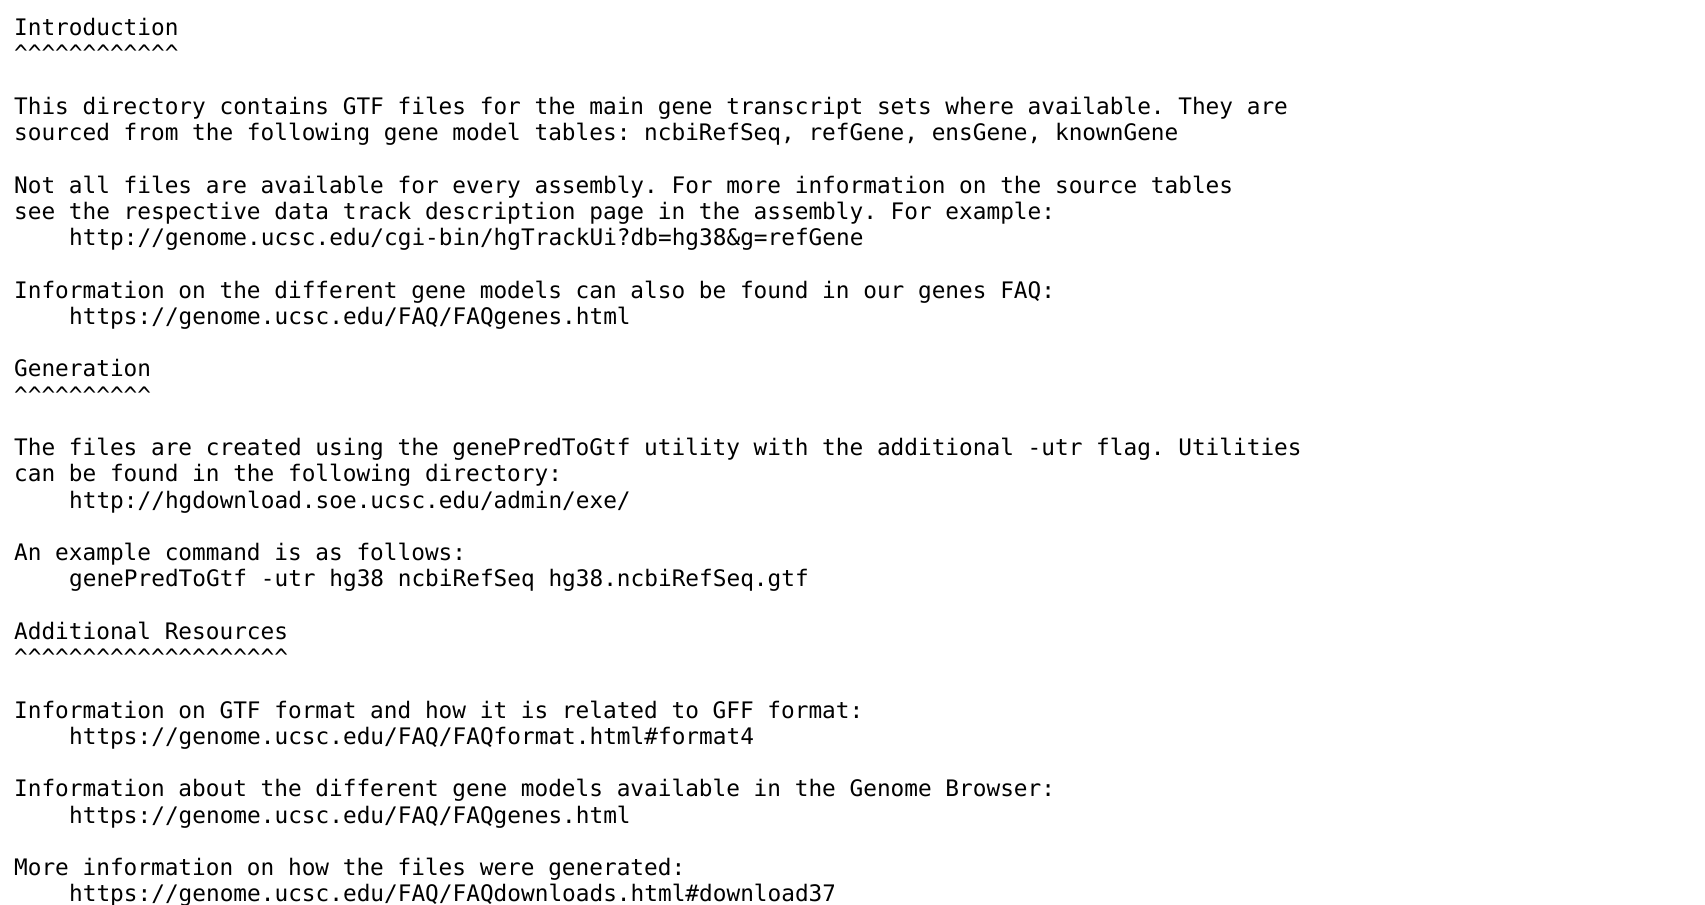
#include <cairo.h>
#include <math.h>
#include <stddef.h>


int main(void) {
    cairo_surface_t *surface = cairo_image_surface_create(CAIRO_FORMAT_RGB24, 1705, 905);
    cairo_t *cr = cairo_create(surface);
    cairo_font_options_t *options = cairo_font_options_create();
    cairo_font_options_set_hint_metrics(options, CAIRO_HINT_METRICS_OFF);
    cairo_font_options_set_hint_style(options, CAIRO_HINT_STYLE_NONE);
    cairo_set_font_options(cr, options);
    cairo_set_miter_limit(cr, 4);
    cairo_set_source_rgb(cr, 1, 1, 1);
    cairo_paint(cr);
    cairo_select_font_face(cr, "DejaVu Sans Mono", CAIRO_FONT_SLANT_NORMAL, CAIRO_FONT_WEIGHT_NORMAL);
    cairo_set_font_size(cr, 22.75);
    cairo_set_source_rgb(cr, 0, 0, 0);
    cairo_move_to(cr, 14, 35);
    cairo_show_text(cr, "Introduction");
    cairo_move_to(cr, 14, 61);
    cairo_show_text(cr, "^^^^^^^^^^^^");
    cairo_move_to(cr, 14, 114);
    cairo_show_text(cr, "This directory contains GTF files for the main gene transcript sets where available. They are");
    cairo_move_to(cr, 14, 140);
    cairo_show_text(cr, "sourced from the following gene model tables: ncbiRefSeq, refGene, ensGene, knownGene");
    cairo_move_to(cr, 14, 193);
    cairo_show_text(cr, "Not all files are available for every assembly. For more information on the source tables");
    cairo_move_to(cr, 14, 219);
    cairo_show_text(cr, "see the respective data track description page in the assembly. For example:");
    cairo_move_to(cr, 69, 245);
    cairo_show_text(cr, "http://genome.ucsc.edu/cgi-bin/hgTrackUi?db=hg38&g=refGene");
    cairo_move_to(cr, 14, 298);
    cairo_show_text(cr, "Information on the different gene models can also be found in our genes FAQ:");
    cairo_move_to(cr, 69, 324);
    cairo_show_text(cr, "https://genome.ucsc.edu/FAQ/FAQgenes.html");
    cairo_move_to(cr, 14, 376);
    cairo_show_text(cr, "Generation");
    cairo_move_to(cr, 14, 403);
    cairo_show_text(cr, "^^^^^^^^^^");
    cairo_move_to(cr, 14, 455);
    cairo_show_text(cr, "The files are created using the genePredToGtf utility with the additional -utr flag. Utilities");
    cairo_move_to(cr, 14, 481);
    cairo_show_text(cr, "can be found in the following directory:");
    cairo_move_to(cr, 69, 508);
    cairo_show_text(cr, "http://hgdownload.soe.ucsc.edu/admin/exe/");
    cairo_move_to(cr, 14, 560);
    cairo_show_text(cr, "An example command is as follows:");
    cairo_move_to(cr, 69, 586);
    cairo_show_text(cr, "genePredToGtf -utr hg38 ncbiRefSeq hg38.ncbiRefSeq.gtf");
    cairo_move_to(cr, 14, 639);
    cairo_show_text(cr, "Additional Resources");
    cairo_move_to(cr, 14, 665);
    cairo_show_text(cr, "^^^^^^^^^^^^^^^^^^^^");
    cairo_move_to(cr, 14, 718);
    cairo_show_text(cr, "Information on GTF format and how it is related to GFF format:");
    cairo_move_to(cr, 69, 744);
    cairo_show_text(cr, "https://genome.ucsc.edu/FAQ/FAQformat.html#format4");
    cairo_move_to(cr, 14, 796);
    cairo_show_text(cr, "Information about the different gene models available in the Genome Browser:");
    cairo_move_to(cr, 69, 823);
    cairo_show_text(cr, "https://genome.ucsc.edu/FAQ/FAQgenes.html");
    cairo_move_to(cr, 14, 875);
    cairo_show_text(cr, "More information on how the files were generated:");
    cairo_move_to(cr, 69, 901);
    cairo_show_text(cr, "https://genome.ucsc.edu/FAQ/FAQdownloads.html#download37");
    cairo_surface_write_to_png(surface, "page.png");
    cairo_font_options_destroy(options);
    cairo_destroy(cr);
    cairo_surface_destroy(surface);
    return 0;
}
